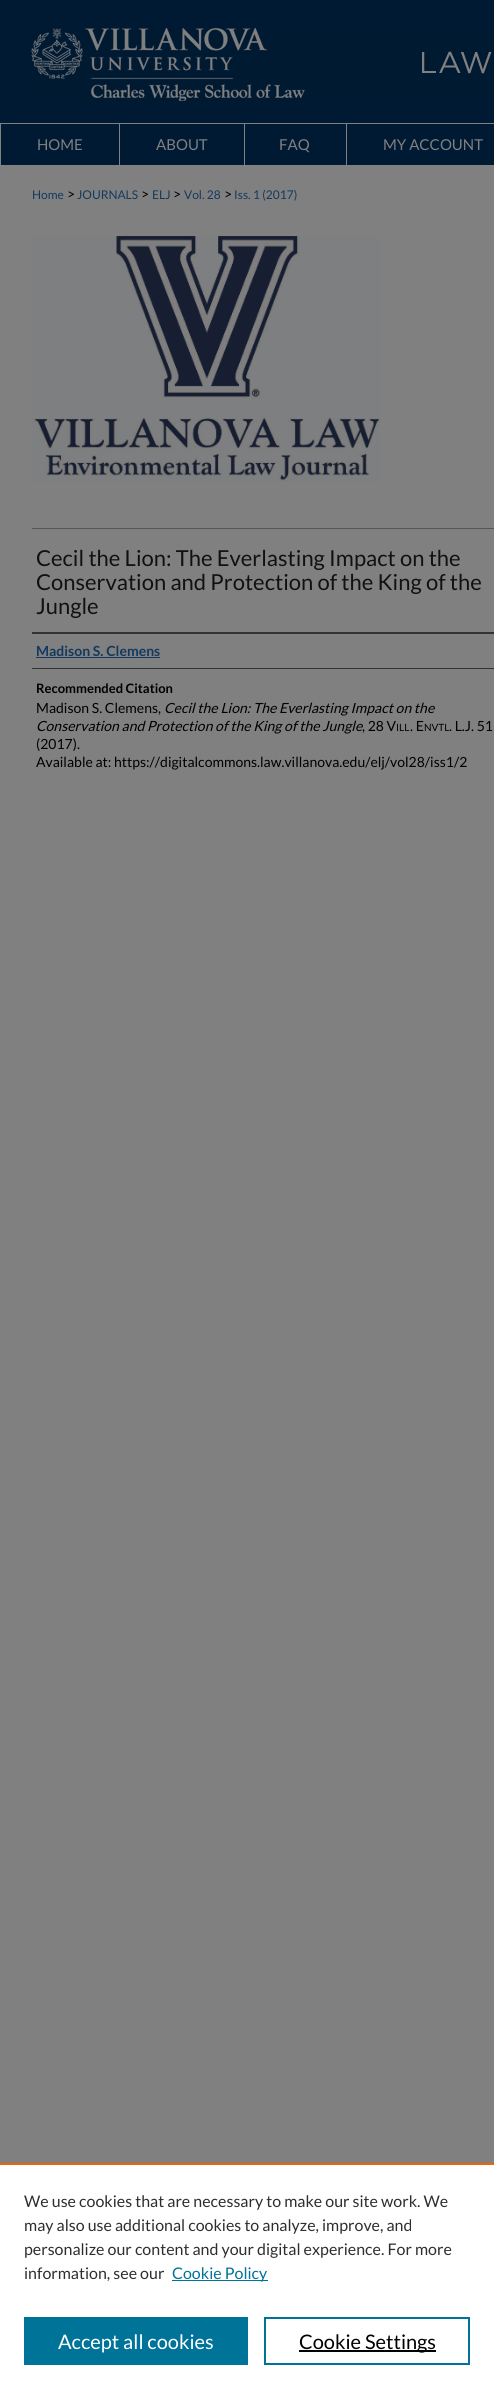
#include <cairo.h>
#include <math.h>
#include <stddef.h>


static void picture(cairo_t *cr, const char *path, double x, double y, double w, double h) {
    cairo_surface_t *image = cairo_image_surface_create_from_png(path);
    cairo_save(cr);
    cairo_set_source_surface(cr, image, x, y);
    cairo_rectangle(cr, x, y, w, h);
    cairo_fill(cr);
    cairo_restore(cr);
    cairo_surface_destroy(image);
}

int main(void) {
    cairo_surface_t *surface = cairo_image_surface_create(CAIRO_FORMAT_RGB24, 494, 2389);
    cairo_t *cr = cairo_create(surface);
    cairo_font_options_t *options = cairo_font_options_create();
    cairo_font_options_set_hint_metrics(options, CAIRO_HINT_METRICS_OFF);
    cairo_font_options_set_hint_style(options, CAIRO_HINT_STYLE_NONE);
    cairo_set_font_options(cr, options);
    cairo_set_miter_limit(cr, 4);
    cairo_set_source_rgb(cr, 0.502, 0.502, 0.502);
    cairo_paint(cr);
    cairo_set_source_rgb(cr, 0.004, 0.102, 0.2);
    cairo_rectangle(cr, 0, 0, 494, 165);
    cairo_fill(cr);
    picture(cr, "img1.png", 31, 28, 461, 73);
    cairo_set_source_rgb(cr, 0.502, 0.502, 0.502);
    cairo_rectangle(cr, 0, 123, 494, 1);
    cairo_fill(cr);
    cairo_rectangle(cr, 0, 123, 1, 42);
    cairo_fill(cr);
    cairo_rectangle(cr, 119, 124, 1, 41);
    cairo_fill(cr);
    cairo_select_font_face(cr, "Lato", CAIRO_FONT_SLANT_NORMAL, CAIRO_FONT_WEIGHT_NORMAL);
    cairo_set_font_size(cr, 15);
    cairo_move_to(cr, 37, 150);
    cairo_show_text(cr, "HOME");
    cairo_rectangle(cr, 244, 124, 1, 41);
    cairo_fill(cr);
    cairo_move_to(cr, 156, 150);
    cairo_show_text(cr, "ABOUT");
    cairo_rectangle(cr, 346, 124, 1, 41);
    cairo_fill(cr);
    cairo_move_to(cr, 279, 150);
    cairo_show_text(cr, "FAQ");
    cairo_move_to(cr, 383, 150);
    cairo_show_text(cr, "MY ACCOUNT");
    cairo_set_font_size(cr, 12);
    cairo_set_source_rgb(cr, 0.078, 0.224, 0.373);
    cairo_move_to(cr, 32, 199);
    cairo_show_text(cr, "Home");
    cairo_set_font_size(cr, 14);
    cairo_set_source_rgb(cr, 0, 0, 0);
    cairo_move_to(cr, 67, 199);
    cairo_show_text(cr, ">");
    cairo_set_font_size(cr, 12);
    cairo_set_source_rgb(cr, 0.078, 0.224, 0.373);
    cairo_move_to(cr, 77, 199);
    cairo_show_text(cr, "JOURNALS");
    cairo_set_font_size(cr, 14);
    cairo_set_source_rgb(cr, 0, 0, 0);
    cairo_move_to(cr, 141, 199);
    cairo_show_text(cr, ">");
    cairo_set_font_size(cr, 12);
    cairo_set_source_rgb(cr, 0.078, 0.224, 0.373);
    cairo_move_to(cr, 152, 199);
    cairo_show_text(cr, "ELJ");
    cairo_set_font_size(cr, 14);
    cairo_set_source_rgb(cr, 0, 0, 0);
    cairo_move_to(cr, 173, 199);
    cairo_show_text(cr, ">");
    cairo_set_font_size(cr, 12);
    cairo_set_source_rgb(cr, 0.078, 0.224, 0.373);
    cairo_move_to(cr, 184, 199);
    cairo_show_text(cr, "Vol. 28");
    cairo_set_font_size(cr, 14);
    cairo_set_source_rgb(cr, 0, 0, 0);
    cairo_move_to(cr, 224, 199);
    cairo_show_text(cr, ">");
    cairo_set_font_size(cr, 12);
    cairo_set_source_rgb(cr, 0.078, 0.224, 0.373);
    cairo_move_to(cr, 234, 199);
    cairo_show_text(cr, "Iss. 1 (2017)");
    picture(cr, "img2.png", 32, 236, 348, 246);
    cairo_set_source_rgb(cr, 0.333, 0.333, 0.333);
    cairo_rectangle(cr, 32, 528, 462, 1);
    cairo_fill(cr);
    cairo_set_font_size(cr, 22);
    cairo_set_source_rgb(cr, 0.067, 0.067, 0.067);
    cairo_move_to(cr, 36, 566);
    cairo_show_text(cr, "Cecil the Lion: The Everlasting Impact on the");
    cairo_move_to(cr, 36, 590);
    cairo_show_text(cr, "Conservation and Protection of the King of the");
    cairo_move_to(cr, 36, 614);
    cairo_show_text(cr, "Jungle");
    cairo_set_source_rgb(cr, 0.2, 0.2, 0.2);
    cairo_rectangle(cr, 32, 632, 462, 2);
    cairo_fill(cr);
    cairo_rectangle(cr, 32, 668, 462, 1);
    cairo_fill(cr);
    cairo_select_font_face(cr, "Lato", CAIRO_FONT_SLANT_NORMAL, CAIRO_FONT_WEIGHT_BOLD);
    cairo_set_font_size(cr, 14);
    cairo_set_source_rgb(cr, 0.078, 0.224, 0.373);
    cairo_move_to(cr, 36, 656);
    cairo_show_text(cr, "Madison S. Clemens");
    cairo_rectangle(cr, 36, 657, 124, 1);
    cairo_fill(cr);
    cairo_set_font_size(cr, 13);
    cairo_set_source_rgb(cr, 0, 0, 0);
    cairo_move_to(cr, 36, 693);
    cairo_show_text(cr, "Recommended Citation");
    cairo_select_font_face(cr, "Lato", CAIRO_FONT_SLANT_NORMAL, CAIRO_FONT_WEIGHT_NORMAL);
    cairo_set_font_size(cr, 14);
    cairo_move_to(cr, 36, 713);
    cairo_show_text(cr, "Madison S. Clemens,");
    cairo_select_font_face(cr, "Lato", CAIRO_FONT_SLANT_ITALIC, CAIRO_FONT_WEIGHT_NORMAL);
    cairo_move_to(cr, 164, 713);
    cairo_show_text(cr, "Cecil the Lion: The Everlasting Impact on the");
    cairo_move_to(cr, 36, 731);
    cairo_show_text(cr, "Conservation and Protection of the King of the Jungle");
    cairo_select_font_face(cr, "Lato", CAIRO_FONT_SLANT_NORMAL, CAIRO_FONT_WEIGHT_NORMAL);
    cairo_move_to(cr, 362, 731);
    cairo_show_text(cr, ", 28 V");
    cairo_set_font_size(cr, 10);
    cairo_move_to(cr, 396, 731);
    cairo_show_text(cr, "ILL");
    cairo_set_font_size(cr, 14);
    cairo_move_to(cr, 410, 731);
    cairo_show_text(cr, ". E");
    cairo_set_font_size(cr, 10);
    cairo_move_to(cr, 424, 731);
    cairo_show_text(cr, "NVTL");
    cairo_set_font_size(cr, 14);
    cairo_move_to(cr, 449, 731);
    cairo_show_text(cr, ". L.J. 51");
    cairo_move_to(cr, 36, 749);
    cairo_show_text(cr, "(2017).");
    cairo_move_to(cr, 36, 767);
    cairo_show_text(cr, "Available at: https://digitalcommons.law.villanova.edu/elj/vol28/iss1/2");
    cairo_set_source_rgb(cr, 1, 1, 1);
    cairo_rectangle(cr, 0, 2165, 494, 224);
    cairo_fill(cr);
    cairo_set_source_rgb(cr, 0.922, 0.396, 0);
    cairo_rectangle(cr, 0, 2163, 494, 2);
    cairo_fill(cr);
    cairo_set_font_size(cr, 16);
    cairo_set_source_rgb(cr, 0.18, 0.18, 0.18);
    cairo_move_to(cr, 24, 2207);
    cairo_show_text(cr, "We use cookies that are necessary to make our site work. We");
    cairo_move_to(cr, 24, 2231);
    cairo_show_text(cr, "may also use additional cookies to analyze, improve, and");
    cairo_move_to(cr, 24, 2255);
    cairo_show_text(cr, "personalize our content and your digital experience. For more");
    cairo_move_to(cr, 24, 2279);
    cairo_show_text(cr, "information, see our");
    cairo_set_source_rgb(cr, 0, 0.451, 0.596);
    cairo_rectangle(cr, 172, 2280, 96, 1);
    cairo_fill(cr);
    cairo_move_to(cr, 172, 2279);
    cairo_show_text(cr, "Cookie Policy");
    cairo_rectangle(cr, 24, 2317, 224, 48);
    cairo_fill(cr);
    cairo_set_font_size(cr, 20);
    cairo_set_source_rgb(cr, 1, 1, 1);
    cairo_move_to(cr, 58, 2349);
    cairo_show_text(cr, "Accept all cookies");
    cairo_rectangle(cr, 265, 2318, 204, 46);
    cairo_set_source_rgb(cr, 0, 0.451, 0.596);
    cairo_stroke(cr);
    cairo_set_source_rgb(cr, 0, 0, 0);
    cairo_rectangle(cr, 299, 2350, 137, 2);
    cairo_fill(cr);
    cairo_move_to(cr, 299, 2349);
    cairo_show_text(cr, "Cookie Settings");
    cairo_surface_write_to_png(surface, "page.png");
    cairo_font_options_destroy(options);
    cairo_destroy(cr);
    cairo_surface_destroy(surface);
    return 0;
}
